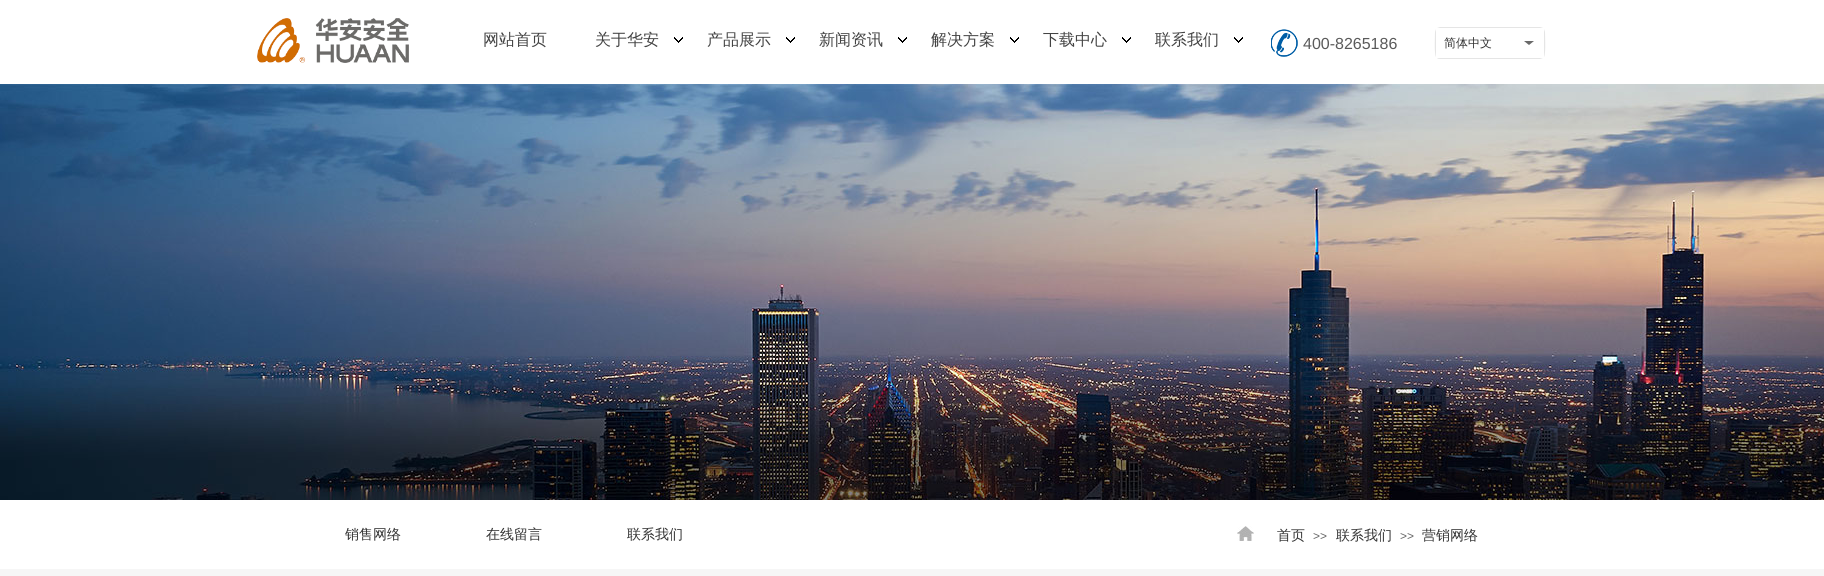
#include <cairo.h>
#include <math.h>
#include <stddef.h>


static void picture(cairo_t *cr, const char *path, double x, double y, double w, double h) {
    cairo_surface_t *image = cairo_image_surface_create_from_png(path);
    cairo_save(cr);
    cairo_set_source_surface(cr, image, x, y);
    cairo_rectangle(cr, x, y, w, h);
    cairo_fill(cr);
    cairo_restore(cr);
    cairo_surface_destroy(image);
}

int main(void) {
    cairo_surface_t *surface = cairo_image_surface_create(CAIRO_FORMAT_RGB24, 1824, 576);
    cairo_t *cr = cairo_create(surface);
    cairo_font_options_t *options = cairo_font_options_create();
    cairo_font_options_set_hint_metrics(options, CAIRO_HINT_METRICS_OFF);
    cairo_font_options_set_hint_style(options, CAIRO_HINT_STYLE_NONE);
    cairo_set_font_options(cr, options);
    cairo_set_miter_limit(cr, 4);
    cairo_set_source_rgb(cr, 1, 1, 1);
    cairo_paint(cr);
    picture(cr, "img1.png", 257, 18, 152, 45);
    cairo_select_font_face(cr, "WenQuanYi Zen Hei Medium", CAIRO_FONT_SLANT_NORMAL, CAIRO_FONT_WEIGHT_NORMAL);
    cairo_set_font_size(cr, 16);
    cairo_set_source_rgb(cr, 0.263, 0.263, 0.263);
    cairo_move_to(cr, 483, 45);
    cairo_show_text(cr, "网站首页");
    picture(cr, "img2.png", 674, 37, 9, 6);
    cairo_move_to(cr, 595, 45);
    cairo_show_text(cr, "关于华安");
    picture(cr, "img2.png", 786, 37, 9, 6);
    cairo_move_to(cr, 707, 45);
    cairo_show_text(cr, "产品展示");
    picture(cr, "img2.png", 898, 37, 9, 6);
    cairo_move_to(cr, 819, 45);
    cairo_show_text(cr, "新闻资讯");
    picture(cr, "img2.png", 1010, 37, 9, 6);
    cairo_move_to(cr, 931, 45);
    cairo_show_text(cr, "解决方案");
    picture(cr, "img2.png", 1122, 37, 9, 6);
    cairo_move_to(cr, 1043, 45);
    cairo_show_text(cr, "下载中心");
    picture(cr, "img2.png", 1234, 37, 9, 6);
    cairo_move_to(cr, 1155, 45);
    cairo_show_text(cr, "联系我们");
    picture(cr, "img3.png", 1271, 29, 27, 28);
    cairo_select_font_face(cr, "Liberation Sans", CAIRO_FONT_SLANT_NORMAL, CAIRO_FONT_WEIGHT_NORMAL);
    cairo_set_source_rgb(cr, 0.353, 0.353, 0.353);
    cairo_move_to(cr, 1303, 49);
    cairo_show_text(cr, "400-8265186");
    cairo_set_source_rgb(cr, 0.898, 0.898, 0.898);
    cairo_set_fill_rule(cr, CAIRO_FILL_RULE_EVEN_ODD);
    cairo_new_path(cr);
    cairo_move_to(cr, 1435, 32);
    cairo_curve_to(cr, 1435, 36, 1434, 54, 1436, 57);
    cairo_line_to(cr, 1436, 29);
    cairo_close_path(cr);
    cairo_move_to(cr, 1440, 27);
    cairo_line_to(cr, 1437, 28);
    cairo_line_to(cr, 1543, 28);
    cairo_line_to(cr, 1540, 27);
    cairo_close_path(cr);
    cairo_move_to(cr, 1545, 32);
    cairo_line_to(cr, 1544, 29);
    cairo_line_to(cr, 1544, 57);
    cairo_curve_to(cr, 1546, 54, 1545, 36, 1545, 32);
    cairo_close_path(cr);
    cairo_move_to(cr, 1540, 59);
    cairo_line_to(cr, 1543, 58);
    cairo_line_to(cr, 1437, 58);
    cairo_curve_to(cr, 1438, 59, 1439, 59, 1440, 59);
    cairo_close_path(cr);
    cairo_fill(cr);
    cairo_select_font_face(cr, "WenQuanYi Zen Hei Medium", CAIRO_FONT_SLANT_NORMAL, CAIRO_FONT_WEIGHT_NORMAL);
    cairo_set_font_size(cr, 12);
    cairo_set_source_rgb(cr, 0.2, 0.2, 0.2);
    cairo_move_to(cr, 1444, 47);
    cairo_show_text(cr, "简体中文");
    picture(cr, "img4.png", 1524, 41, 10, 4);
    picture(cr, "img5.png", 0, 84, 1824, 416);
    cairo_set_font_size(cr, 14);
    cairo_move_to(cr, 345, 539);
    cairo_show_text(cr, "销售网络");
    cairo_move_to(cr, 486, 539);
    cairo_show_text(cr, "在线留言");
    cairo_move_to(cr, 627, 539);
    cairo_show_text(cr, "联系我们");
    picture(cr, "img6.png", 1237, 526, 17, 15);
    cairo_move_to(cr, 1277, 540);
    cairo_show_text(cr, "首页");
    cairo_select_font_face(cr, "Liberation Sans", CAIRO_FONT_SLANT_NORMAL, CAIRO_FONT_WEIGHT_NORMAL);
    cairo_set_font_size(cr, 12);
    cairo_set_source_rgb(cr, 0.4, 0.4, 0.4);
    cairo_move_to(cr, 1313, 540);
    cairo_show_text(cr, ">>");
    cairo_select_font_face(cr, "WenQuanYi Zen Hei Medium", CAIRO_FONT_SLANT_NORMAL, CAIRO_FONT_WEIGHT_NORMAL);
    cairo_set_font_size(cr, 14);
    cairo_set_source_rgb(cr, 0.2, 0.2, 0.2);
    cairo_move_to(cr, 1336, 540);
    cairo_show_text(cr, "联系我们");
    cairo_select_font_face(cr, "Liberation Sans", CAIRO_FONT_SLANT_NORMAL, CAIRO_FONT_WEIGHT_NORMAL);
    cairo_set_font_size(cr, 12);
    cairo_set_source_rgb(cr, 0.4, 0.4, 0.4);
    cairo_move_to(cr, 1400, 540);
    cairo_show_text(cr, ">>");
    cairo_select_font_face(cr, "WenQuanYi Zen Hei Medium", CAIRO_FONT_SLANT_NORMAL, CAIRO_FONT_WEIGHT_NORMAL);
    cairo_set_font_size(cr, 14);
    cairo_set_source_rgb(cr, 0.2, 0.2, 0.2);
    cairo_move_to(cr, 1422, 540);
    cairo_show_text(cr, "营销网络");
    cairo_set_source_rgb(cr, 0.961, 0.961, 0.961);
    cairo_rectangle(cr, 0, 569, 1824, 7);
    cairo_fill(cr);
    cairo_surface_write_to_png(surface, "page.png");
    cairo_font_options_destroy(options);
    cairo_destroy(cr);
    cairo_surface_destroy(surface);
    return 0;
}
